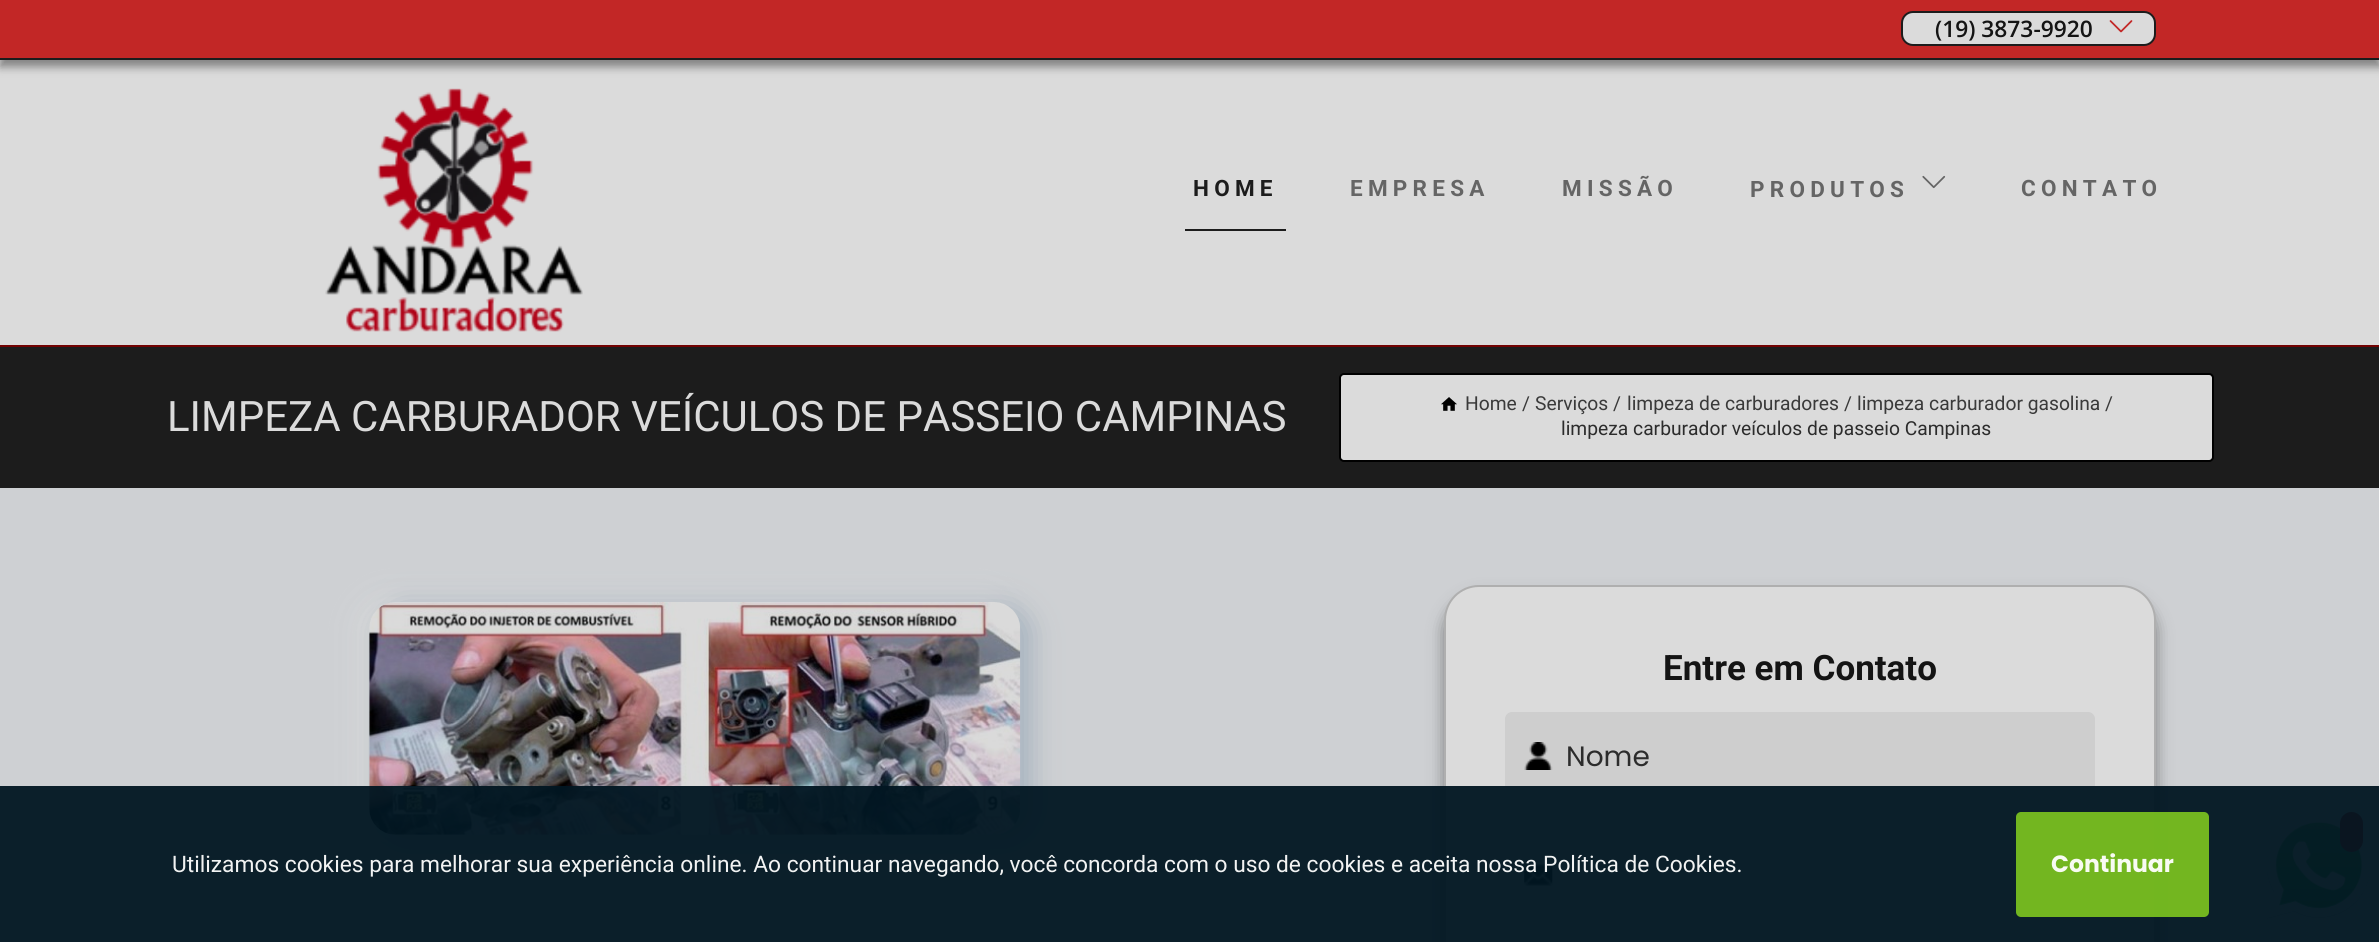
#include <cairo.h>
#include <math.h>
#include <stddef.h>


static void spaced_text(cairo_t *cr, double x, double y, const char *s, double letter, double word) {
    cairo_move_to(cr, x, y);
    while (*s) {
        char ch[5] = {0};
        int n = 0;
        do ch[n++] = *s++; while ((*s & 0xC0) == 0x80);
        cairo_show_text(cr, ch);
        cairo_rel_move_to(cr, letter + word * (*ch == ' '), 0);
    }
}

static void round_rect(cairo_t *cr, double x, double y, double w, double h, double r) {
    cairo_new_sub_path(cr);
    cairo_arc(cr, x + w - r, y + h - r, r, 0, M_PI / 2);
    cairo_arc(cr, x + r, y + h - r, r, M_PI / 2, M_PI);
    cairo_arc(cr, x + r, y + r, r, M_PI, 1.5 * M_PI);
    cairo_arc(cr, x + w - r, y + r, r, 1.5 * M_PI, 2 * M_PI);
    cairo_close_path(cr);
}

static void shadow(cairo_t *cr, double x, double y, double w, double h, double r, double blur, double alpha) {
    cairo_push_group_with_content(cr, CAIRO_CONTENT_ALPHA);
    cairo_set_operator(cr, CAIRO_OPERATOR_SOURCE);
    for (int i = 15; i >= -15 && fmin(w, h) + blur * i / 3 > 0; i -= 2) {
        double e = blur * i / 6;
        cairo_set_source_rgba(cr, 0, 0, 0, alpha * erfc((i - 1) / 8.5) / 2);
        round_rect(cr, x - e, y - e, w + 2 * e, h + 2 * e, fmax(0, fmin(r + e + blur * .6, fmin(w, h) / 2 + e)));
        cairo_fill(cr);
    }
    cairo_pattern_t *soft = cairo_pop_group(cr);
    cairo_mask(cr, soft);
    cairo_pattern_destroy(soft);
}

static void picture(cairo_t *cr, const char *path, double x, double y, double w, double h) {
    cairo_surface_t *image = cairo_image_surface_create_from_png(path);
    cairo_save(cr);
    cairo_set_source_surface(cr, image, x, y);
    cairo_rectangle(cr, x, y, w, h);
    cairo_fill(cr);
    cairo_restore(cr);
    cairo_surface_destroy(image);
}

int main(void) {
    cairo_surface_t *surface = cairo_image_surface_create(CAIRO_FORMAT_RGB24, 2379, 942);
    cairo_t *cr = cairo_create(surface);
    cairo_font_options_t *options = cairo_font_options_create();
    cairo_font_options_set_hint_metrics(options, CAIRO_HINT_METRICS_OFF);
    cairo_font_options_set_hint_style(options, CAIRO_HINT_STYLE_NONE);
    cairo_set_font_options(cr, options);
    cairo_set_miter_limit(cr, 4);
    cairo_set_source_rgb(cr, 0.808, 0.816, 0.827);
    cairo_paint(cr);
    cairo_set_source_rgb(cr, 0.859, 0.859, 0.859);
    cairo_rectangle(cr, 0, 60, 2379, 285);
    cairo_fill(cr);
    cairo_set_source_rgb(cr, 0, 0, 0);
    shadow(cr, 0, 7, 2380, 60, 0, 4.5, 0.4);
    cairo_set_source_rgb(cr, 0.761, 0.153, 0.149);
    cairo_rectangle(cr, 0, 0, 2379, 58);
    cairo_fill(cr);
    cairo_set_source_rgb(cr, 0.11, 0.11, 0.11);
    cairo_rectangle(cr, 0, 58, 2379, 2);
    cairo_fill(cr);
    cairo_set_source_rgb(cr, 0.859, 0.859, 0.859);
    round_rect(cr, 1902, 12, 253, 33, 11);
    cairo_fill_preserve(cr);
    cairo_set_source_rgb(cr, 0.11, 0.11, 0.11);
    cairo_stroke(cr);
    cairo_select_font_face(cr, "Open Sans SemiBold", CAIRO_FONT_SLANT_NORMAL, CAIRO_FONT_WEIGHT_NORMAL);
    cairo_set_font_size(cr, 22.75);
    cairo_set_source_rgb(cr, 0.082, 0.082, 0.082);
    cairo_move_to(cr, 1935, 37);
    cairo_show_text(cr, "(19) 3873-9920");
    picture(cr, "img1.png", 2109, 20, 24, 13);
    picture(cr, "img2.png", 325, 88, 258, 244);
    cairo_select_font_face(cr, "Roboto", CAIRO_FONT_SLANT_NORMAL, CAIRO_FONT_WEIGHT_BOLD);
    cairo_set_font_size(cr, 22.5);
    cairo_set_source_rgb(cr, 0.11, 0.11, 0.11);
    spaced_text(cr, 1193, 196, "HOME", 5.25, 0);
    cairo_rectangle(cr, 1185, 229, 101, 2);
    cairo_fill(cr);
    cairo_set_source_rgb(cr, 0.396, 0.396, 0.396);
    spaced_text(cr, 1350, 196, "EMPRESA", 5.25, 0);
    spaced_text(cr, 1562, 196, "MISSÃO", 5.25, 0);
    spaced_text(cr, 1750, 197, "PRODUTOS", 5.25, 0);
    picture(cr, "img3.png", 1922, 175, 24, 14);
    spaced_text(cr, 2021, 196, "CONTATO", 5.25, 0);
    cairo_set_source_rgb(cr, 0.11, 0.11, 0.11);
    cairo_rectangle(cr, 0, 347, 2379, 141);
    cairo_fill(cr);
    cairo_set_source_rgb(cr, 0.447, 0.008, 0.008);
    cairo_rectangle(cr, 0, 345, 2379, 2);
    cairo_fill(cr);
    cairo_select_font_face(cr, "Roboto", CAIRO_FONT_SLANT_NORMAL, CAIRO_FONT_WEIGHT_NORMAL);
    cairo_set_font_size(cr, 42);
    cairo_set_source_rgb(cr, 0.859, 0.859, 0.859);
    cairo_move_to(cr, 167, 431);
    cairo_show_text(cr, "LIMPEZA CARBURADOR VEÍCULOS DE PASSEIO CAMPINAS");
    round_rect(cr, 1340, 374, 873, 87, 4);
    cairo_fill_preserve(cr);
    cairo_set_source_rgb(cr, 0, 0, 0);
    cairo_stroke(cr);
    picture(cr, "img4.png", 1441, 397, 16, 14);
    cairo_set_font_size(cr, 19.25);
    cairo_set_source_rgb(cr, 0.227, 0.227, 0.227);
    cairo_move_to(cr, 1465, 410);
    cairo_show_text(cr, "Home");
    cairo_move_to(cr, 1522, 410);
    cairo_show_text(cr, "/");
    cairo_move_to(cr, 1535, 410);
    cairo_show_text(cr, "Serviços");
    cairo_move_to(cr, 1613, 410);
    cairo_show_text(cr, "/");
    cairo_move_to(cr, 1627, 410);
    cairo_show_text(cr, "limpeza de carburadores");
    cairo_move_to(cr, 1844, 410);
    cairo_show_text(cr, "/");
    cairo_move_to(cr, 1857, 410);
    cairo_show_text(cr, "limpeza carburador gasolina");
    cairo_move_to(cr, 2105, 410);
    cairo_show_text(cr, "/");
    cairo_set_source_rgb(cr, 0.173, 0.173, 0.173);
    cairo_move_to(cr, 1561, 435);
    cairo_show_text(cr, "limpeza carburador veículos de passeio Campinas");
    cairo_set_source_rgb(cr, 0.859, 0.859, 0.859);
    shadow(cr, 359, 599, 651, 232, 26, 14, 0.8);
    cairo_set_source_rgb(cr, 0.459, 0.557, 0.643);
    shadow(cr, 380, 606, 651, 232, 26, 14, 0.48);
    picture(cr, "img5.png", 369, 602, 652, 233);
    cairo_set_source_rgb(cr, 0, 0, 0);
    shadow(cr, 1444, 597, 712, 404, 35, 8, 0.4);
    cairo_set_source_rgb(cr, 0.859, 0.859, 0.859);
    round_rect(cr, 1445, 586, 710, 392, 34);
    cairo_fill_preserve(cr);
    cairo_set_source_rgb(cr, 0.686, 0.686, 0.686);
    cairo_stroke(cr);
    cairo_select_font_face(cr, "Roboto", CAIRO_FONT_SLANT_NORMAL, CAIRO_FONT_WEIGHT_BOLD);
    cairo_set_font_size(cr, 35);
    cairo_set_source_rgb(cr, 0.082, 0.082, 0.082);
    cairo_move_to(cr, 1663, 680);
    cairo_show_text(cr, "Entre em Contato");
    cairo_set_source_rgb(cr, 0.808, 0.808, 0.808);
    round_rect(cr, 1505, 712, 590, 90, 7);
    cairo_fill(cr);
    picture(cr, "img6.png", 1524, 742, 29, 28);
    cairo_select_font_face(cr, "Poppins", CAIRO_FONT_SLANT_NORMAL, CAIRO_FONT_WEIGHT_NORMAL);
    cairo_set_font_size(cr, 28);
    cairo_set_source_rgb(cr, 0.173, 0.173, 0.173);
    cairo_move_to(cr, 1566, 766);
    cairo_show_text(cr, "Nome");
    cairo_set_source_rgb(cr, 0.808, 0.808, 0.808);
    round_rect(cr, 1505, 831, 590, 90, 7);
    cairo_fill(cr);
    picture(cr, "img7.png", 1524, 864, 29, 22);
    picture(cr, "img8.png", 2266, 814, 105, 105);
    cairo_set_source_rgb(cr, 0.745, 0.016, 0.016);
    round_rect(cr, 2340, 812, 23, 40, 11.5);
    cairo_fill(cr);
    cairo_set_source_rgba(cr, 0.008, 0.09, 0.133, 0.95);
    cairo_rectangle(cr, 0, 786, 2379, 156);
    cairo_fill(cr);
    cairo_select_font_face(cr, "Roboto", CAIRO_FONT_SLANT_NORMAL, CAIRO_FONT_WEIGHT_NORMAL);
    cairo_set_font_size(cr, 22.75);
    cairo_set_source_rgb(cr, 0.949, 0.953, 0.953);
    cairo_move_to(cr, 172, 872);
    cairo_show_text(cr, "Utilizamos cookies para melhorar sua experiência online. Ao continuar navegando, você concorda com o uso de cookies e aceita nossa Política de Cookies.");
    cairo_set_source_rgba(cr, 0.471, 0.745, 0.125, 0.95);
    round_rect(cr, 2016, 812, 193, 105, 5);
    cairo_fill(cr);
    cairo_select_font_face(cr, "Poppins", CAIRO_FONT_SLANT_NORMAL, CAIRO_FONT_WEIGHT_BOLD);
    cairo_set_font_size(cr, 23.5);
    cairo_set_source_rgb(cr, 0.969, 0.984, 0.953);
    cairo_move_to(cr, 2051, 872);
    cairo_show_text(cr, "Continuar");
    cairo_surface_write_to_png(surface, "page.png");
    cairo_font_options_destroy(options);
    cairo_destroy(cr);
    cairo_surface_destroy(surface);
    return 0;
}
